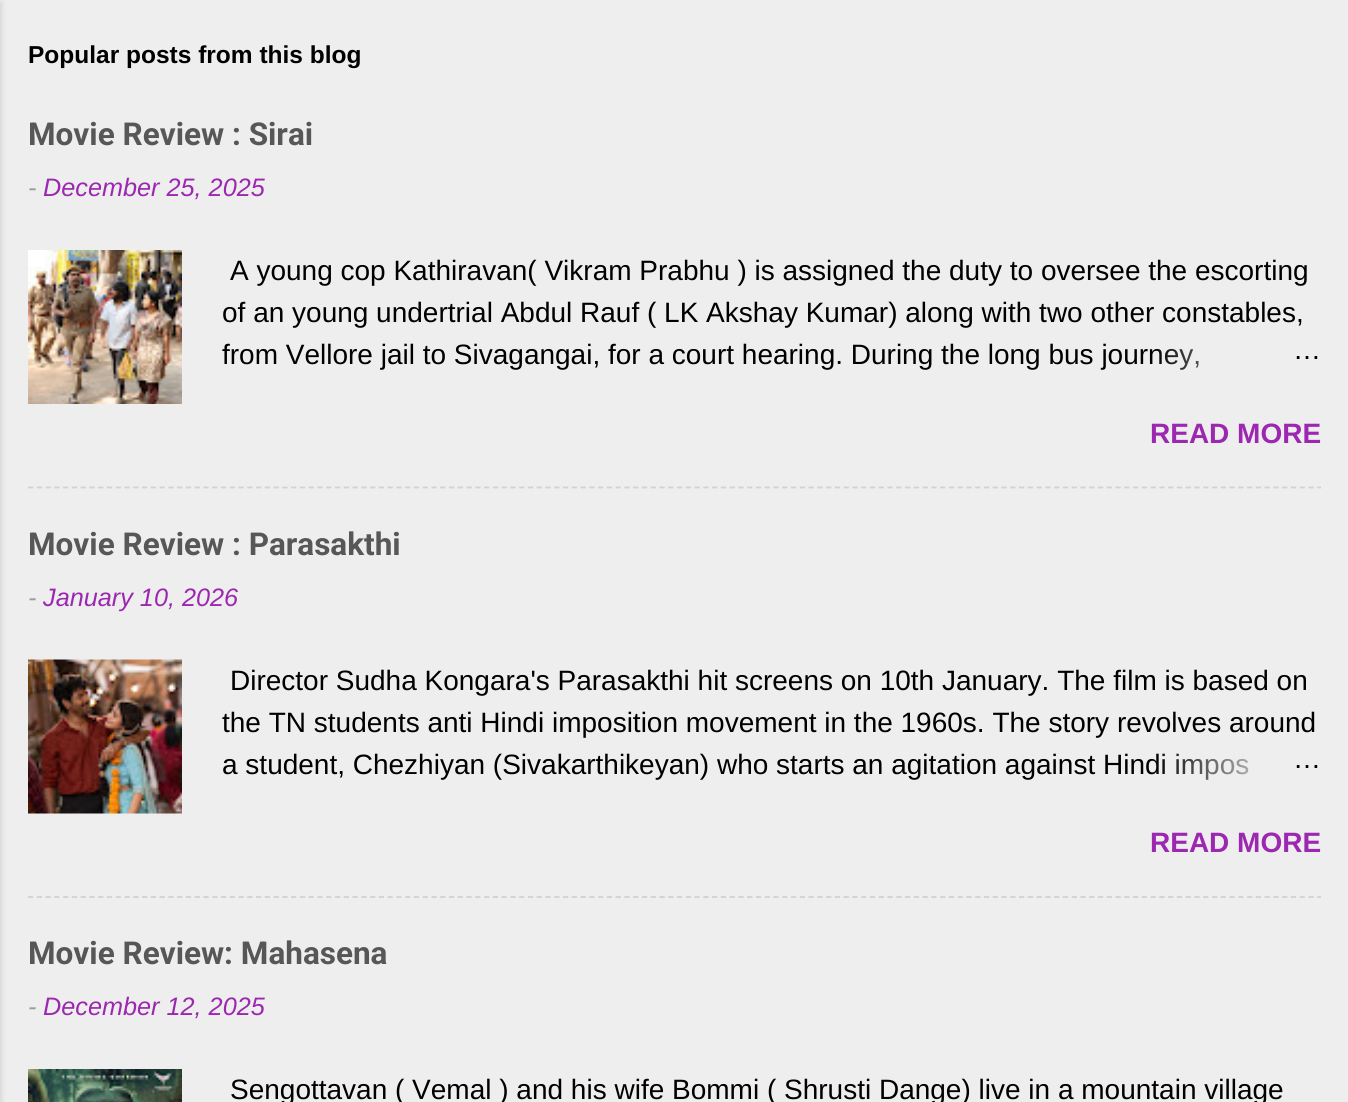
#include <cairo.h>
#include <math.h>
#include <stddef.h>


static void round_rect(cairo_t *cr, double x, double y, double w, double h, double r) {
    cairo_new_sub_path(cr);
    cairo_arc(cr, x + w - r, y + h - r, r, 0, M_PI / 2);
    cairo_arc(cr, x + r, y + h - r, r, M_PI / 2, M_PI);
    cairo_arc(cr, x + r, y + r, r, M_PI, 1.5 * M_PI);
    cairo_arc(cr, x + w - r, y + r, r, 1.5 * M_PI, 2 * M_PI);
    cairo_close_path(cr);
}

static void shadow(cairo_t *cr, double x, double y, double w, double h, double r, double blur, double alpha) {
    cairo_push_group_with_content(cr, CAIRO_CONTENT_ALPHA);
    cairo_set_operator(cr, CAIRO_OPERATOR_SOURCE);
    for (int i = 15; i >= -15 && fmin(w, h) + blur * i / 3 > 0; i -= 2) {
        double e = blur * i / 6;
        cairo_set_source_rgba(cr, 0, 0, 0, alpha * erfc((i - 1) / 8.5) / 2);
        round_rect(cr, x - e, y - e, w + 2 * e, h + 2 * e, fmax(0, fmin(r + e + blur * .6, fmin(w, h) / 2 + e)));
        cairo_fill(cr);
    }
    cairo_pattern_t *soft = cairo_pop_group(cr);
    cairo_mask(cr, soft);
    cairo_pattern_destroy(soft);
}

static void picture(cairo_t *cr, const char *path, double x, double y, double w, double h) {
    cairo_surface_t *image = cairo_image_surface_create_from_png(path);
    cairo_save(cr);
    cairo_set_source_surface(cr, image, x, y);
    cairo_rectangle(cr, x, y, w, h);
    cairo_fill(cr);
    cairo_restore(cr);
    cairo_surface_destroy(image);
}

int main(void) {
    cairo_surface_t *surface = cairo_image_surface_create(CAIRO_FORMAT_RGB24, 1348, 1102);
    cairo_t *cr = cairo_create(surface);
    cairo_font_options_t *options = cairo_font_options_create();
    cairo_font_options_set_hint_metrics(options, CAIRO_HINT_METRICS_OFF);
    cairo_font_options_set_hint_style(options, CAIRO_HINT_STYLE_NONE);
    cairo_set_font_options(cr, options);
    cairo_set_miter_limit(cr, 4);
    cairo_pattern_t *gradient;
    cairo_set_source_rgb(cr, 0.933, 0.933, 0.933);
    cairo_paint(cr);
    cairo_set_source_rgb(cr, 0, 0, 0);
    shadow(cr, -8, 2, 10, 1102, 0, 2.5, 0.1);
    cairo_select_font_face(cr, "Liberation Sans", CAIRO_FONT_SLANT_NORMAL, CAIRO_FONT_WEIGHT_BOLD);
    cairo_set_font_size(cr, 24.5);
    cairo_set_source_rgb(cr, 0, 0, 0);
    cairo_move_to(cr, 28, 63);
    cairo_show_text(cr, "Popular posts from this blog");
    cairo_select_font_face(cr, "Roboto", CAIRO_FONT_SLANT_NORMAL, CAIRO_FONT_WEIGHT_BOLD);
    cairo_set_font_size(cr, 31.5);
    cairo_set_source_rgb(cr, 0.341, 0.341, 0.341);
    cairo_move_to(cr, 28, 145);
    cairo_show_text(cr, "Movie Review : Sirai");
    cairo_select_font_face(cr, "Liberation Sans", CAIRO_FONT_SLANT_ITALIC, CAIRO_FONT_WEIGHT_NORMAL);
    cairo_set_font_size(cr, 25.25);
    cairo_set_source_rgb(cr, 0.612, 0.612, 0.612);
    cairo_move_to(cr, 28, 196);
    cairo_show_text(cr, "-");
    cairo_set_source_rgb(cr, 0.612, 0.153, 0.69);
    cairo_move_to(cr, 43, 196);
    cairo_show_text(cr, "December 25, 2025");
    picture(cr, "img1.png", 28, 250, 154, 154);
    cairo_select_font_face(cr, "Liberation Sans", CAIRO_FONT_SLANT_NORMAL, CAIRO_FONT_WEIGHT_NORMAL);
    cairo_set_font_size(cr, 28);
    cairo_set_source_rgb(cr, 0, 0, 0);
    cairo_move_to(cr, 230, 280);
    cairo_show_text(cr, "A young cop Kathiravan( Vikram Prabhu ) is assigned the duty to oversee the escorting");
    cairo_move_to(cr, 222, 322);
    cairo_show_text(cr, "of an young undertrial Abdul Rauf ( LK Akshay Kumar) along with two other constables,");
    cairo_move_to(cr, 222, 364);
    cairo_show_text(cr, "from Vellore jail to Sivagangai, for a court hearing. During the long bus journey,");
    gradient = cairo_pattern_create_linear(1321, 355, 1153, 355);
    cairo_pattern_add_color_stop_rgba(gradient, 0, 0.933, 0.933, 0.933, 1);
    cairo_pattern_add_color_stop_rgba(gradient, 0.2, 0.933, 0.933, 0.933, 1);
    cairo_pattern_add_color_stop_rgba(gradient, 1, 0.933, 0.933, 0.933, 0);
    cairo_set_source(cr, gradient);
    cairo_pattern_destroy(gradient);
    cairo_rectangle(cr, 1156, 349, 43, 21);
    cairo_fill(cr);
    cairo_set_source_rgb(cr, 0, 0, 0);
    cairo_move_to(cr, 1293, 359);
    cairo_show_text(cr, "…");
    cairo_select_font_face(cr, "Liberation Sans", CAIRO_FONT_SLANT_NORMAL, CAIRO_FONT_WEIGHT_BOLD);
    cairo_set_source_rgb(cr, 0.612, 0.153, 0.69);
    cairo_move_to(cr, 1150, 443);
    cairo_show_text(cr, "READ MORE");
    cairo_new_path(cr);
    cairo_move_to(cr, 28, 487.5);
    cairo_line_to(cr, 1321, 487.5);
    cairo_set_source_rgb(cr, 0.82, 0.82, 0.82);
    cairo_set_line_width(cr, 1.8);
    cairo_set_dash(cr, (double[]){5.25, 3.52}, 2, 0);
    cairo_stroke(cr);
    cairo_select_font_face(cr, "Roboto", CAIRO_FONT_SLANT_NORMAL, CAIRO_FONT_WEIGHT_BOLD);
    cairo_set_font_size(cr, 31.5);
    cairo_set_source_rgb(cr, 0.341, 0.341, 0.341);
    cairo_move_to(cr, 28, 555);
    cairo_show_text(cr, "Movie Review : Parasakthi");
    cairo_select_font_face(cr, "Liberation Sans", CAIRO_FONT_SLANT_ITALIC, CAIRO_FONT_WEIGHT_NORMAL);
    cairo_set_font_size(cr, 25.25);
    cairo_set_source_rgb(cr, 0.612, 0.612, 0.612);
    cairo_move_to(cr, 28, 606);
    cairo_show_text(cr, "-");
    cairo_set_source_rgb(cr, 0.612, 0.153, 0.69);
    cairo_move_to(cr, 43, 606);
    cairo_show_text(cr, "January 10, 2026");
    picture(cr, "img2.png", 28, 659, 154, 155);
    cairo_select_font_face(cr, "Liberation Sans", CAIRO_FONT_SLANT_NORMAL, CAIRO_FONT_WEIGHT_NORMAL);
    cairo_set_font_size(cr, 28);
    cairo_set_source_rgb(cr, 0, 0, 0);
    cairo_move_to(cr, 230, 690);
    cairo_show_text(cr, "Director Sudha Kongara's Parasakthi hit screens on 10th January. The film is based on");
    cairo_move_to(cr, 222, 732);
    cairo_show_text(cr, "the TN students anti Hindi imposition movement in the 1960s. The story revolves around");
    cairo_move_to(cr, 222, 774);
    cairo_show_text(cr, "a student, Chezhiyan (Sivakarthikeyan) who starts an agitation against Hindi impos");
    gradient = cairo_pattern_create_linear(1321, 765, 1153, 765);
    cairo_pattern_add_color_stop_rgba(gradient, 0, 0.933, 0.933, 0.933, 1);
    cairo_pattern_add_color_stop_rgba(gradient, 0.2, 0.933, 0.933, 0.933, 1);
    cairo_pattern_add_color_stop_rgba(gradient, 1, 0.933, 0.933, 0.933, 0);
    cairo_set_source(cr, gradient);
    cairo_pattern_destroy(gradient);
    cairo_rectangle(cr, 1156, 753, 93, 27);
    cairo_fill(cr);
    cairo_set_source_rgb(cr, 0, 0, 0);
    cairo_move_to(cr, 1293, 768);
    cairo_show_text(cr, "…");
    cairo_select_font_face(cr, "Liberation Sans", CAIRO_FONT_SLANT_NORMAL, CAIRO_FONT_WEIGHT_BOLD);
    cairo_set_source_rgb(cr, 0.612, 0.153, 0.69);
    cairo_move_to(cr, 1150, 852);
    cairo_show_text(cr, "READ MORE");
    cairo_new_path(cr);
    cairo_move_to(cr, 28, 897);
    cairo_line_to(cr, 1321, 897);
    cairo_set_source_rgb(cr, 0.82, 0.82, 0.82);
    cairo_stroke(cr);
    cairo_select_font_face(cr, "Roboto", CAIRO_FONT_SLANT_NORMAL, CAIRO_FONT_WEIGHT_BOLD);
    cairo_set_font_size(cr, 31.5);
    cairo_set_source_rgb(cr, 0.341, 0.341, 0.341);
    cairo_move_to(cr, 28, 964);
    cairo_show_text(cr, "Movie Review: Mahasena");
    cairo_select_font_face(cr, "Liberation Sans", CAIRO_FONT_SLANT_ITALIC, CAIRO_FONT_WEIGHT_NORMAL);
    cairo_set_font_size(cr, 25.25);
    cairo_set_source_rgb(cr, 0.612, 0.612, 0.612);
    cairo_move_to(cr, 28, 1015);
    cairo_show_text(cr, "-");
    cairo_set_source_rgb(cr, 0.612, 0.153, 0.69);
    cairo_move_to(cr, 43, 1015);
    cairo_show_text(cr, "December 12, 2025");
    picture(cr, "img3.png", 28, 1069, 154, 33);
    cairo_select_font_face(cr, "Liberation Sans", CAIRO_FONT_SLANT_NORMAL, CAIRO_FONT_WEIGHT_NORMAL);
    cairo_set_font_size(cr, 28);
    cairo_set_source_rgb(cr, 0, 0, 0);
    cairo_move_to(cr, 230, 1099);
    cairo_show_text(cr, "Sengottavan ( Vemal ) and his wife Bommi ( Shrusti Dange) live in a mountain village");
    cairo_surface_write_to_png(surface, "page.png");
    cairo_font_options_destroy(options);
    cairo_destroy(cr);
    cairo_surface_destroy(surface);
    return 0;
}
